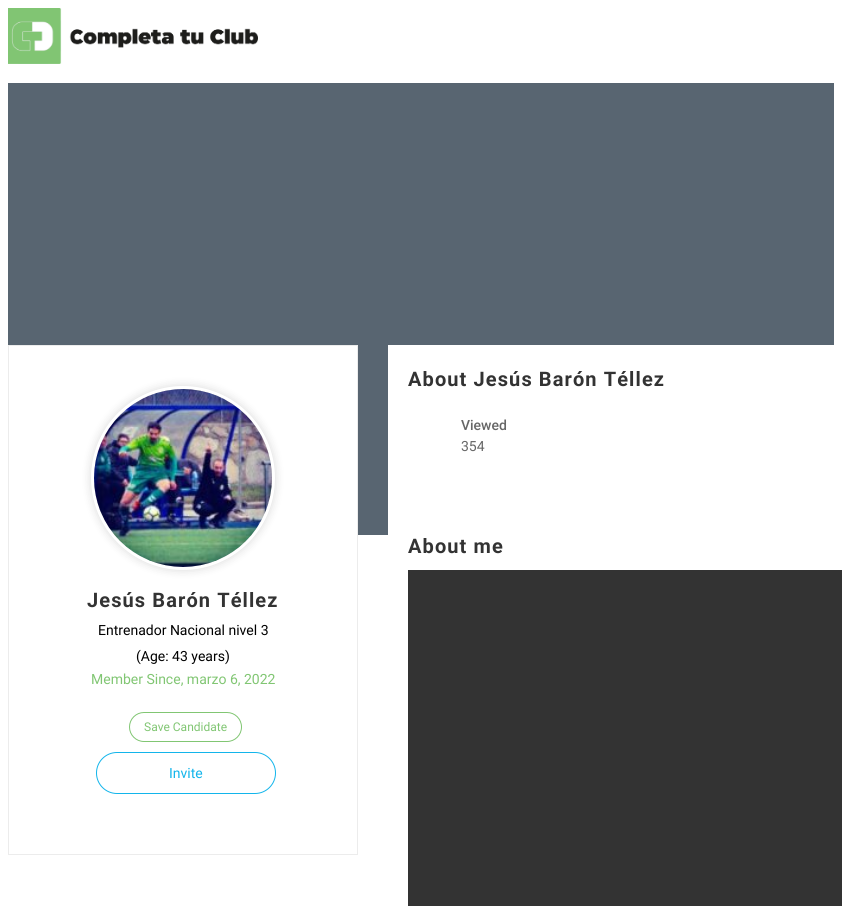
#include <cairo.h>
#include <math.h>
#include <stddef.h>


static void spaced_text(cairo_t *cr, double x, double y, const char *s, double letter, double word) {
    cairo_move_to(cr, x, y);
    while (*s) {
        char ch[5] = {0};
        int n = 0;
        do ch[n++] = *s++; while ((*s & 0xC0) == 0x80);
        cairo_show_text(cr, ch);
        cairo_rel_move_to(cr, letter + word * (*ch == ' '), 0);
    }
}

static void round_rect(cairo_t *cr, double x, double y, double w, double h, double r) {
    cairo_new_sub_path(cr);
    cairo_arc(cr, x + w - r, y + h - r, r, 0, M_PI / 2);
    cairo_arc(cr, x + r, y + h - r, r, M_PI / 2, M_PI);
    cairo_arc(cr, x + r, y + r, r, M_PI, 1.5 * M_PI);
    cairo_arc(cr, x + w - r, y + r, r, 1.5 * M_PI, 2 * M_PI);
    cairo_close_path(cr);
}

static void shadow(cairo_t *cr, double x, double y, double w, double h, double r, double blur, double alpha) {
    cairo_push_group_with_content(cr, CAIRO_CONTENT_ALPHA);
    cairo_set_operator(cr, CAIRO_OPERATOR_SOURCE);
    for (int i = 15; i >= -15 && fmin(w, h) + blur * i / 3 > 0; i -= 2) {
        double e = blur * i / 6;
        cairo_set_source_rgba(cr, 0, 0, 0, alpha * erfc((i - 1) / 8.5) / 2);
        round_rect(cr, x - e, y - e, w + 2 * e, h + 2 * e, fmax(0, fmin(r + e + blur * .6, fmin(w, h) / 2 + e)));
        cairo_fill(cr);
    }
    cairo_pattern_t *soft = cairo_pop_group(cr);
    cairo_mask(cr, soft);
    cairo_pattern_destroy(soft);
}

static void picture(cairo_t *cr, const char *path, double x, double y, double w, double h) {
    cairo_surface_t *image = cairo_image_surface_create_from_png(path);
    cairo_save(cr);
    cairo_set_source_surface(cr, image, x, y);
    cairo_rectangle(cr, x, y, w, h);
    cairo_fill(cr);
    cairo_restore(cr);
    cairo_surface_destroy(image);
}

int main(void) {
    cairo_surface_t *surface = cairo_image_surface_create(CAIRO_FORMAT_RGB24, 842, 906);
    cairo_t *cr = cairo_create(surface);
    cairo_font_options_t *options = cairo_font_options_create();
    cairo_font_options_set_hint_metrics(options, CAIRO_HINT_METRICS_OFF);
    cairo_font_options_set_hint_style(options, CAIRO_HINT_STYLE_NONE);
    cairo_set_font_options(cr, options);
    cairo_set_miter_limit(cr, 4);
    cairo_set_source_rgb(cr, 1, 1, 1);
    cairo_paint(cr);
    picture(cr, "img1.png", 8, 8, 250, 56);
    cairo_set_source_rgb(cr, 0.345, 0.396, 0.443);
    cairo_rectangle(cr, 8, 83, 826, 452);
    cairo_fill(cr);
    cairo_set_source_rgb(cr, 1, 1, 1);
    cairo_rectangle(cr, 388, 345, 446, 190);
    cairo_fill(cr);
    cairo_select_font_face(cr, "Roboto", CAIRO_FONT_SLANT_NORMAL, CAIRO_FONT_WEIGHT_BOLD);
    cairo_set_font_size(cr, 20);
    cairo_set_source_rgb(cr, 0.2, 0.2, 0.2);
    spaced_text(cr, 408, 386, "About Jesús Barón Téllez", 1.1, 0);
    cairo_select_font_face(cr, "Roboto Medium", CAIRO_FONT_SLANT_NORMAL, CAIRO_FONT_WEIGHT_NORMAL);
    cairo_set_font_size(cr, 14);
    cairo_set_source_rgb(cr, 0.4, 0.4, 0.4);
    cairo_move_to(cr, 461, 430);
    cairo_show_text(cr, "Viewed");
    cairo_select_font_face(cr, "Roboto", CAIRO_FONT_SLANT_NORMAL, CAIRO_FONT_WEIGHT_NORMAL);
    cairo_move_to(cr, 461, 451);
    cairo_show_text(cr, "354");
    cairo_select_font_face(cr, "Roboto", CAIRO_FONT_SLANT_NORMAL, CAIRO_FONT_WEIGHT_BOLD);
    cairo_set_font_size(cr, 20);
    cairo_set_source_rgb(cr, 0.2, 0.2, 0.2);
    spaced_text(cr, 408, 553, "About me", 1.1, 0);
    cairo_rectangle(cr, 408, 570, 434, 336);
    cairo_fill(cr);
    cairo_set_source_rgb(cr, 1, 1, 1);
    cairo_rectangle(cr, 9, 346, 348, 189);
    cairo_fill(cr);
    cairo_rectangle(cr, 8.5, 345.5, 349, 509);
    cairo_set_source_rgb(cr, 0.925, 0.925, 0.925);
    cairo_set_line_width(cr, 1);
    cairo_stroke(cr);
    cairo_set_source_rgb(cr, 0, 0, 0);
    shadow(cr, 91, 386, 184, 184, 92, 5, 0.15);
    cairo_arc(cr, 183, 478, 90.5, 0, 2 * M_PI);
    cairo_set_source_rgb(cr, 1, 1, 1);
    cairo_set_line_width(cr, 3);
    cairo_stroke(cr);
    picture(cr, "img2.png", 94, 389, 178, 178);
    cairo_set_source_rgb(cr, 0.2, 0.2, 0.2);
    spaced_text(cr, 87, 607, "Jesús Barón Téllez", 1.1, 0);
    cairo_select_font_face(cr, "Roboto", CAIRO_FONT_SLANT_NORMAL, CAIRO_FONT_WEIGHT_NORMAL);
    cairo_set_font_size(cr, 14);
    cairo_set_source_rgb(cr, 0, 0, 0);
    cairo_move_to(cr, 98, 635);
    cairo_show_text(cr, "Entrenador Nacional nivel 3");
    cairo_move_to(cr, 136, 661);
    cairo_show_text(cr, "(Age: 43 years)");
    cairo_set_source_rgb(cr, 0.506, 0.776, 0.451);
    cairo_move_to(cr, 91, 684);
    cairo_show_text(cr, "Member Since, marzo 6, 2022");
    round_rect(cr, 129.5, 712.5, 112, 29, 14.5);
    cairo_set_line_width(cr, 1);
    cairo_stroke(cr);
    cairo_set_font_size(cr, 12);
    cairo_move_to(cr, 144, 731);
    cairo_show_text(cr, "Save Candidate");
    round_rect(cr, 96.5, 752.5, 179, 41, 20.5);
    cairo_set_source_rgb(cr, 0.075, 0.71, 0.918);
    cairo_stroke(cr);
    cairo_set_font_size(cr, 14);
    cairo_move_to(cr, 169, 778);
    cairo_show_text(cr, "Invite");
    cairo_surface_write_to_png(surface, "page.png");
    cairo_font_options_destroy(options);
    cairo_destroy(cr);
    cairo_surface_destroy(surface);
    return 0;
}
